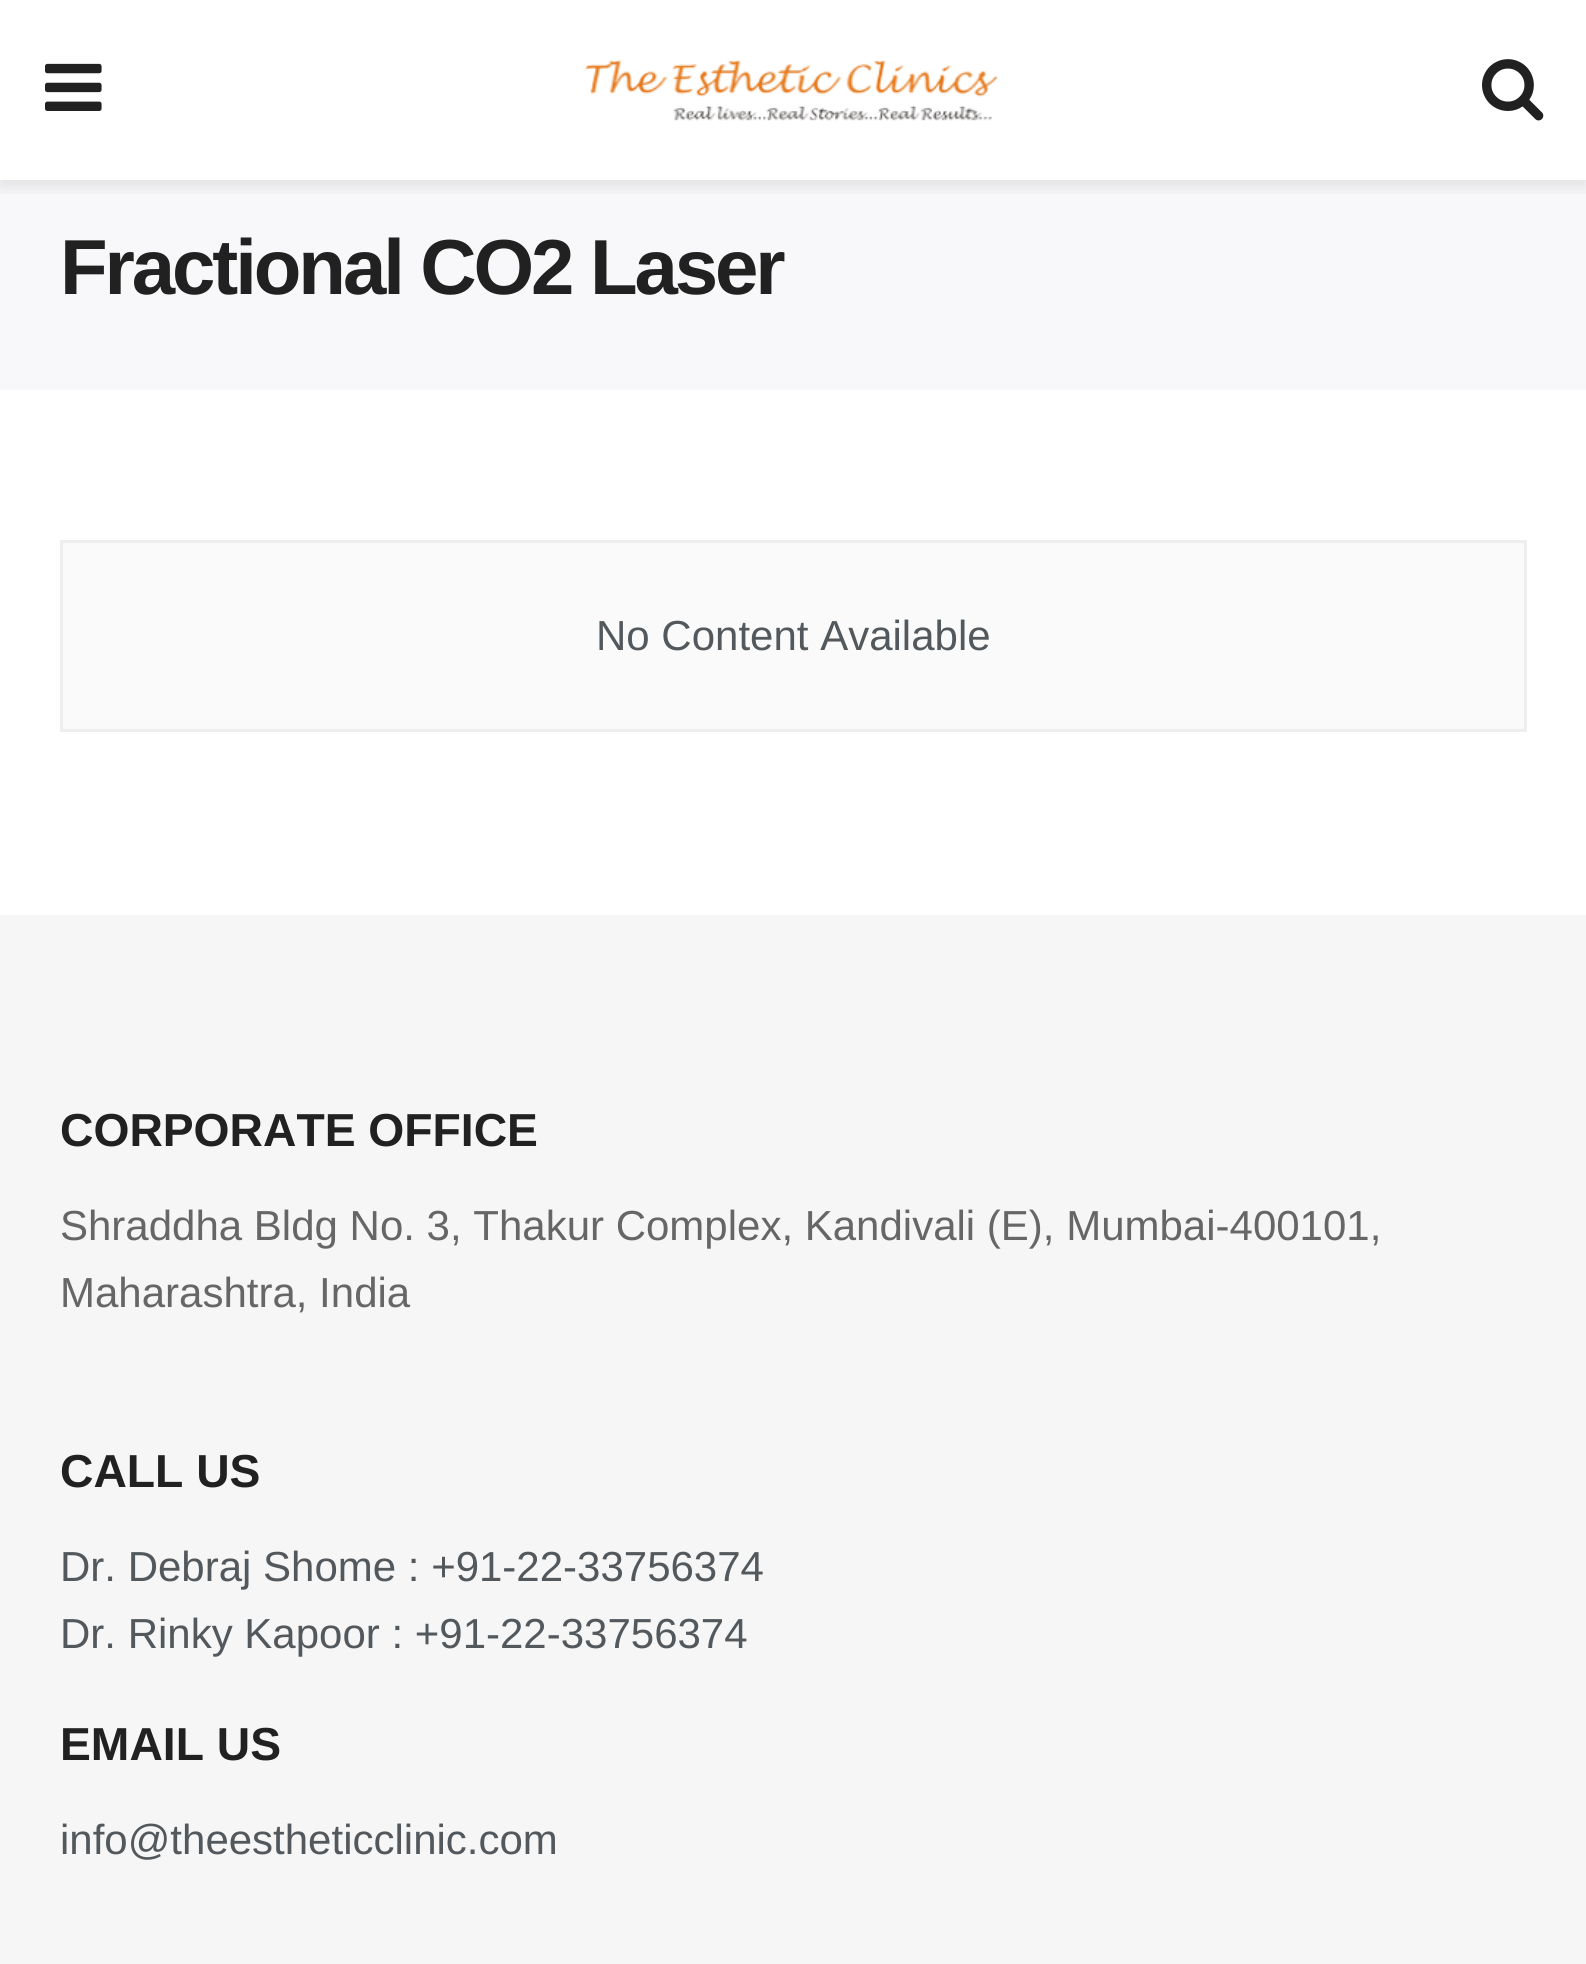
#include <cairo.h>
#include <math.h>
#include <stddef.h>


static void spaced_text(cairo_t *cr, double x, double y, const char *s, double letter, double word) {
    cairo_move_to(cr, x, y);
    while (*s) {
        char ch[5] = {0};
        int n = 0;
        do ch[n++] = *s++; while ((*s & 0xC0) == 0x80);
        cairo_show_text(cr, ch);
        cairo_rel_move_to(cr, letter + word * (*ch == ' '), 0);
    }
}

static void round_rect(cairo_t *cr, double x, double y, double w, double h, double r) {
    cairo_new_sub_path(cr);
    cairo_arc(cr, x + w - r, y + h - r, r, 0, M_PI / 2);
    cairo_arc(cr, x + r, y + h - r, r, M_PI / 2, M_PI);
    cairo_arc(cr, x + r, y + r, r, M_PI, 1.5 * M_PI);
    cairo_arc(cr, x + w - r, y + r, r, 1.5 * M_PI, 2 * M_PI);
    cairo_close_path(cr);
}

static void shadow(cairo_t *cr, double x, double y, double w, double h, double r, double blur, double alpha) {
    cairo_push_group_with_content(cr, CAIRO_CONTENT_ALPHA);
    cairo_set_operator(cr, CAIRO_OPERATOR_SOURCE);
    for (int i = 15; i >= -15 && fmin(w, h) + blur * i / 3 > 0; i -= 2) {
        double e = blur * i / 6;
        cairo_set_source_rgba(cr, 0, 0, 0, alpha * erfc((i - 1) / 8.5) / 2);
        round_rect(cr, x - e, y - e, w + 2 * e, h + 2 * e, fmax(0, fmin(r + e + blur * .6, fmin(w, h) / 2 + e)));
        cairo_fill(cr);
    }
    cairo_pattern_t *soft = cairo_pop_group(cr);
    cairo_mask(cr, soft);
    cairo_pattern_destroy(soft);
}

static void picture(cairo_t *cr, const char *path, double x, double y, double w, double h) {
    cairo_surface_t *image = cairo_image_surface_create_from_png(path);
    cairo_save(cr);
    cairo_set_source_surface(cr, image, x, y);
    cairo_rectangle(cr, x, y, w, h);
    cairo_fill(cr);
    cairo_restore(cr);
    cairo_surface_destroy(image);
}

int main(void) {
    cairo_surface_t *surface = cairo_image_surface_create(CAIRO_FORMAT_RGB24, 1586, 1964);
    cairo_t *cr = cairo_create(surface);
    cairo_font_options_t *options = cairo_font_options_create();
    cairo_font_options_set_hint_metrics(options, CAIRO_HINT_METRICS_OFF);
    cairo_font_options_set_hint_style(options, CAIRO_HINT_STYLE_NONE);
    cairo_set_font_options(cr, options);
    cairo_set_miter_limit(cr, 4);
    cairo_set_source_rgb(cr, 1, 1, 1);
    cairo_paint(cr);
    cairo_set_source_rgb(cr, 0.969, 0.969, 0.98);
    cairo_rectangle(cr, 0, 180, 1586, 210);
    cairo_fill(cr);
    cairo_save(cr);
    cairo_rectangle(cr, 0, 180, 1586, 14);
    cairo_clip(cr);
    cairo_set_source_rgb(cr, 0, 0, 0);
    shadow(cr, 0, 6, 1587, 180, 0, 9, 0.1);
    cairo_restore(cr);
    picture(cr, "img1.png", 45, 63, 57, 48);
    picture(cr, "img2.png", 585, 59, 413, 62);
    picture(cr, "img3.png", 1482, 59, 62, 62);
    cairo_select_font_face(cr, "Liberation Sans", CAIRO_FONT_SLANT_NORMAL, CAIRO_FONT_WEIGHT_BOLD);
    cairo_set_font_size(cr, 78);
    cairo_set_source_rgb(cr, 0.129, 0.129, 0.129);
    spaced_text(cr, 60, 294, "Fractional CO2 Laser", -3.1, 0);
    cairo_set_source_rgb(cr, 0.98, 0.98, 0.98);
    cairo_rectangle(cr, 61.5, 541.5, 1464, 189);
    cairo_fill_preserve(cr);
    cairo_set_source_rgb(cr, 0.933, 0.933, 0.933);
    cairo_set_line_width(cr, 3);
    cairo_stroke(cr);
    cairo_select_font_face(cr, "Liberation Sans", CAIRO_FONT_SLANT_NORMAL, CAIRO_FONT_WEIGHT_NORMAL);
    cairo_set_font_size(cr, 42);
    cairo_set_source_rgb(cr, 0.325, 0.345, 0.361);
    cairo_move_to(cr, 596, 650);
    cairo_show_text(cr, "No Content Available");
    cairo_set_source_rgb(cr, 0.961, 0.961, 0.961);
    cairo_rectangle(cr, 0, 915, 1586, 1049);
    cairo_fill(cr);
    cairo_select_font_face(cr, "Liberation Sans", CAIRO_FONT_SLANT_NORMAL, CAIRO_FONT_WEIGHT_BOLD);
    cairo_set_font_size(cr, 46.25);
    cairo_set_source_rgb(cr, 0.129, 0.129, 0.129);
    cairo_move_to(cr, 60, 1146);
    cairo_show_text(cr, "CORPORATE OFFICE");
    cairo_select_font_face(cr, "Liberation Sans", CAIRO_FONT_SLANT_NORMAL, CAIRO_FONT_WEIGHT_NORMAL);
    cairo_set_font_size(cr, 42);
    cairo_set_source_rgb(cr, 0.4, 0.4, 0.4);
    cairo_move_to(cr, 60, 1240);
    cairo_show_text(cr, "Shraddha Bldg No. 3, Thakur Complex, Kandivali (E), Mumbai-400101,");
    cairo_move_to(cr, 60, 1307);
    cairo_show_text(cr, "Maharashtra, India");
    cairo_select_font_face(cr, "Liberation Sans", CAIRO_FONT_SLANT_NORMAL, CAIRO_FONT_WEIGHT_BOLD);
    cairo_set_font_size(cr, 46.25);
    cairo_set_source_rgb(cr, 0.129, 0.129, 0.129);
    cairo_move_to(cr, 60, 1487);
    cairo_show_text(cr, "CALL US");
    cairo_select_font_face(cr, "Liberation Sans", CAIRO_FONT_SLANT_NORMAL, CAIRO_FONT_WEIGHT_NORMAL);
    cairo_set_font_size(cr, 42);
    cairo_set_source_rgb(cr, 0.325, 0.345, 0.361);
    cairo_move_to(cr, 60, 1581);
    cairo_show_text(cr, "Dr. Debraj Shome : +91-22-33756374");
    cairo_move_to(cr, 60, 1648);
    cairo_show_text(cr, "Dr. Rinky Kapoor : +91-22-33756374");
    cairo_select_font_face(cr, "Liberation Sans", CAIRO_FONT_SLANT_NORMAL, CAIRO_FONT_WEIGHT_BOLD);
    cairo_set_font_size(cr, 46.25);
    cairo_set_source_rgb(cr, 0.129, 0.129, 0.129);
    cairo_move_to(cr, 60, 1760);
    cairo_show_text(cr, "EMAIL US");
    cairo_select_font_face(cr, "Liberation Sans", CAIRO_FONT_SLANT_NORMAL, CAIRO_FONT_WEIGHT_NORMAL);
    cairo_set_font_size(cr, 42);
    cairo_set_source_rgb(cr, 0.325, 0.345, 0.361);
    cairo_move_to(cr, 60, 1854);
    cairo_show_text(cr, "info@theestheticclinic.com");
    cairo_surface_write_to_png(surface, "page.png");
    cairo_font_options_destroy(options);
    cairo_destroy(cr);
    cairo_surface_destroy(surface);
    return 0;
}
